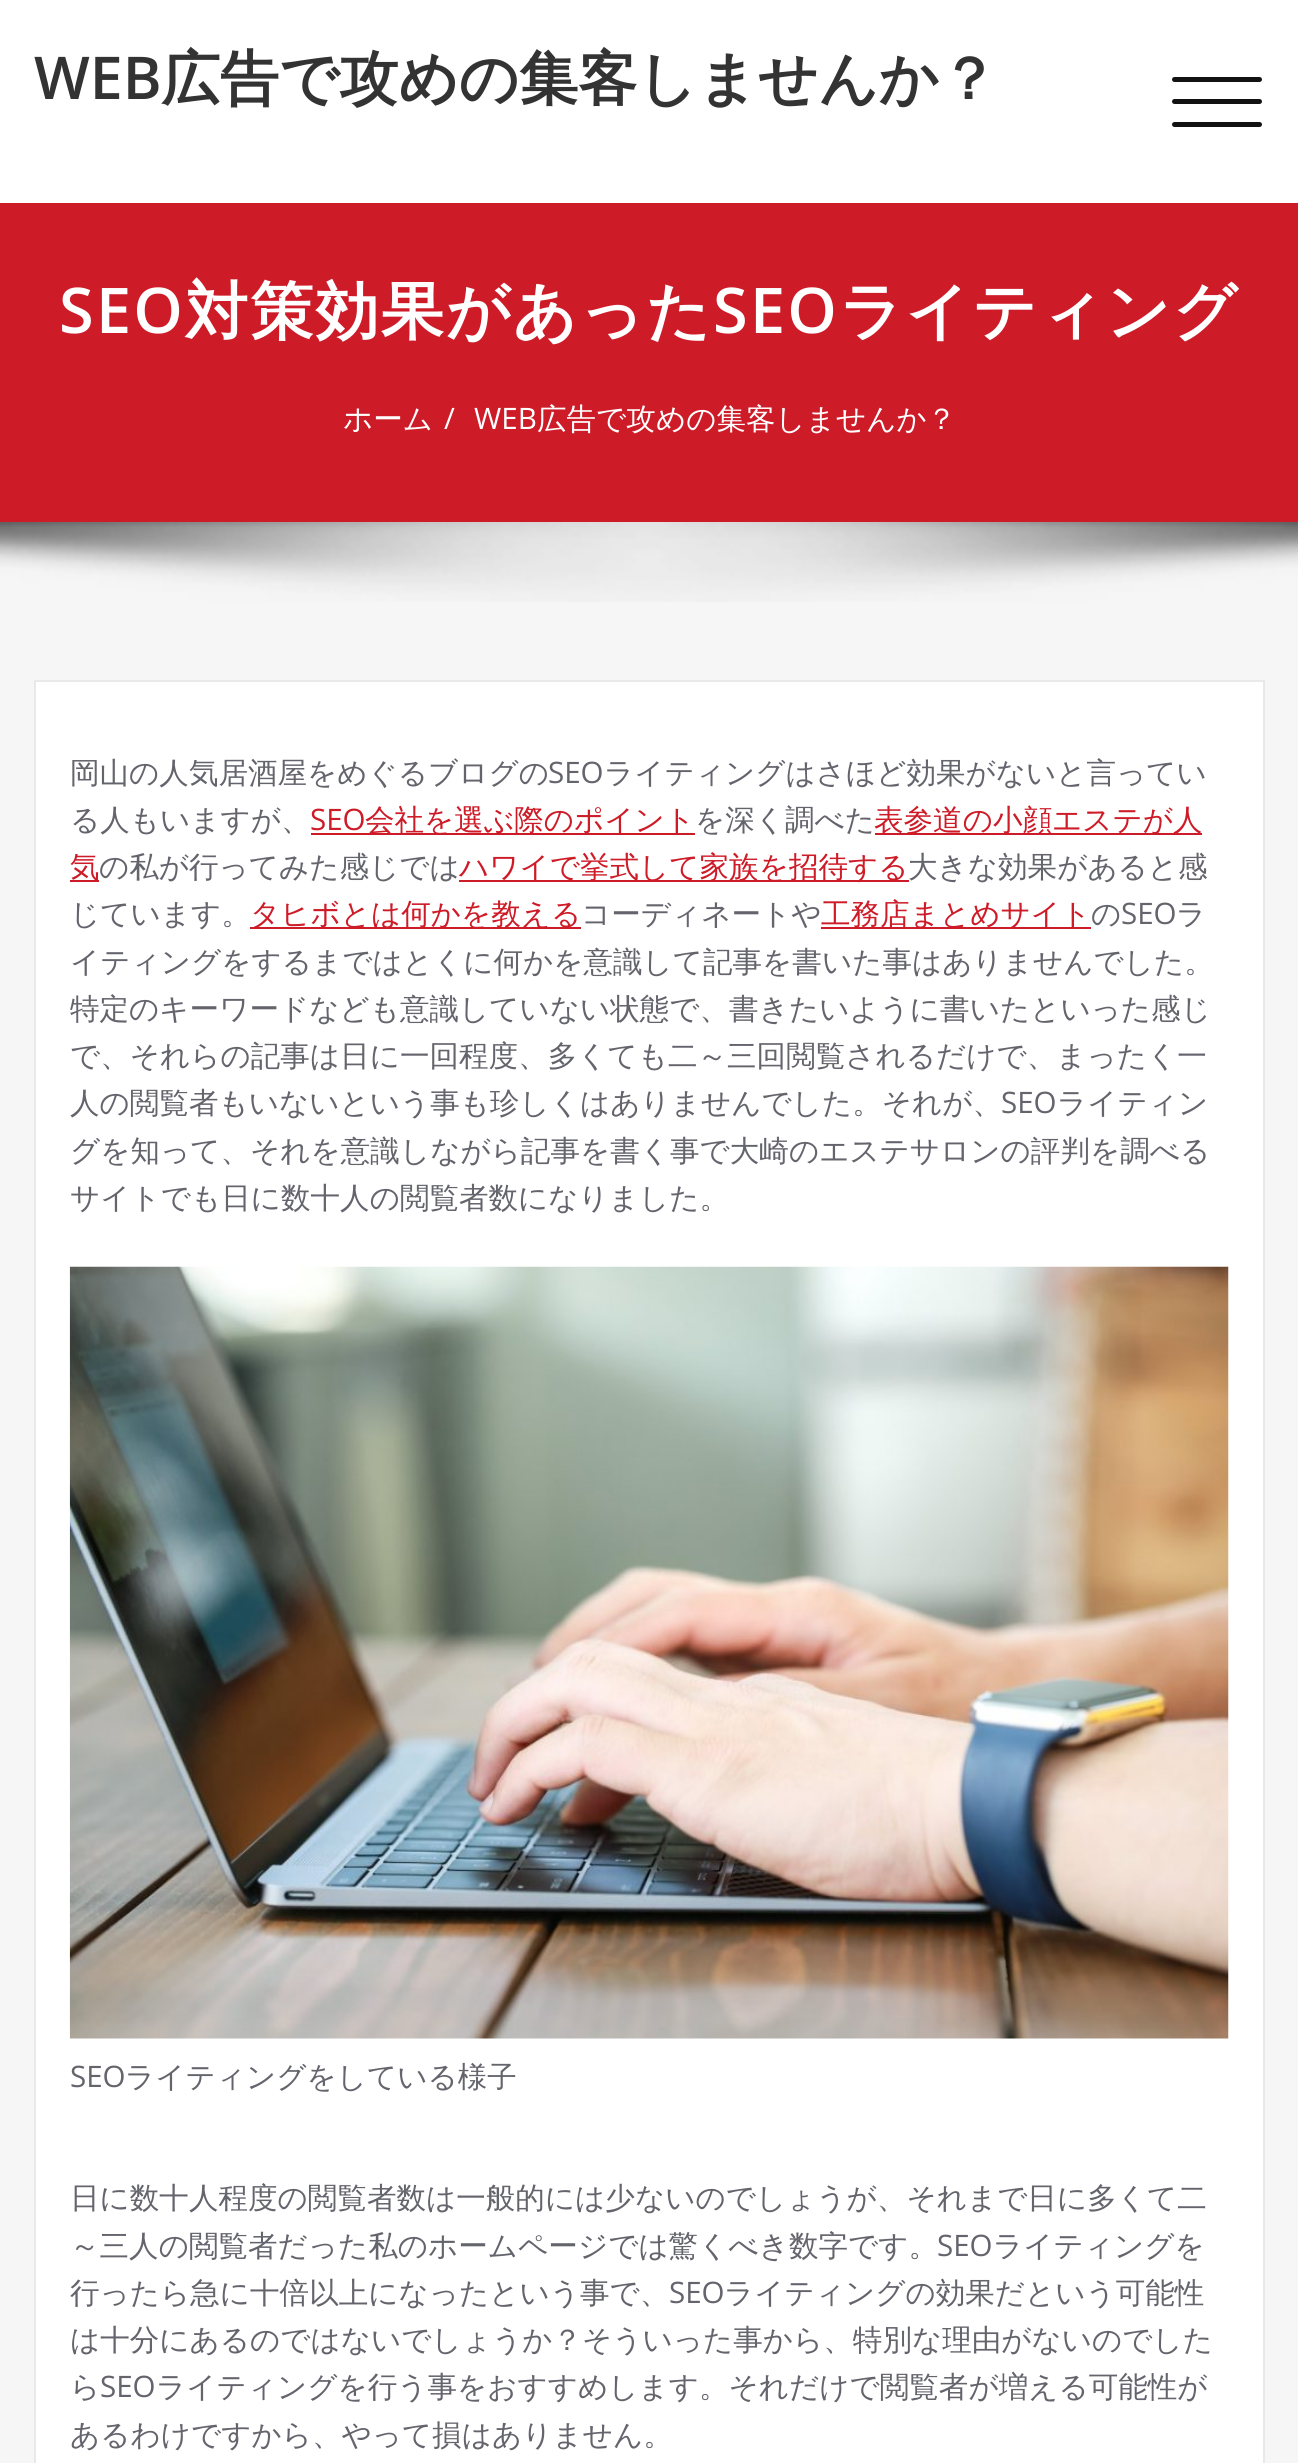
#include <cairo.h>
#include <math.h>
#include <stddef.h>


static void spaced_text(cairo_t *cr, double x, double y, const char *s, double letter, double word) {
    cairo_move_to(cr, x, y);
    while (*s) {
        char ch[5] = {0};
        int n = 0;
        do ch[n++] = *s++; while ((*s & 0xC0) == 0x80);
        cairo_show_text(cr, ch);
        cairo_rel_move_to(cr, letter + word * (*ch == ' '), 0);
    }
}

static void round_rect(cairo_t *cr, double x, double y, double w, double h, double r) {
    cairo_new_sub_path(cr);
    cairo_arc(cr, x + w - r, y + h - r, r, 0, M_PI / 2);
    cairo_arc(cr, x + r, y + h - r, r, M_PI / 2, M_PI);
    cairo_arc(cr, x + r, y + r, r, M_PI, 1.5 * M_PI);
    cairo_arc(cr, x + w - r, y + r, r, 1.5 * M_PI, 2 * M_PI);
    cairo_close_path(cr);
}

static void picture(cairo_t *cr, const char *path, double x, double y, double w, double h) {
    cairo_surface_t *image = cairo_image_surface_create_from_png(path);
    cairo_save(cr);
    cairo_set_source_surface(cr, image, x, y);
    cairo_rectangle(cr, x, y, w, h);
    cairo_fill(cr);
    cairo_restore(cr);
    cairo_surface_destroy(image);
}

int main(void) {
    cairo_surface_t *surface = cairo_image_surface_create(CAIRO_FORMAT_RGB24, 1298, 2463);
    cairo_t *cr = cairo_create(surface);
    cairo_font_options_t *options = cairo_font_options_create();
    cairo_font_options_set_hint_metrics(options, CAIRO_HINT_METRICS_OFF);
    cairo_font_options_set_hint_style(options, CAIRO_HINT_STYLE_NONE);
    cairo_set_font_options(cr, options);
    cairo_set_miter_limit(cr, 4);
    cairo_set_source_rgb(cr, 0.961, 0.961, 0.961);
    cairo_paint(cr);
    cairo_set_source_rgb(cr, 1, 1, 1);
    cairo_rectangle(cr, 0, 0, 1298, 203);
    cairo_fill(cr);
    cairo_select_font_face(cr, "Open Sans SemiBold", CAIRO_FONT_SLANT_NORMAL, CAIRO_FONT_WEIGHT_NORMAL);
    cairo_set_font_size(cr, 59);
    cairo_set_source_rgb(cr, 0.2, 0.2, 0.2);
    cairo_move_to(cr, 34, 99);
    cairo_show_text(cr, "WEB");
    cairo_select_font_face(cr, "WenQuanYi Zen Hei", CAIRO_FONT_SLANT_NORMAL, CAIRO_FONT_WEIGHT_BOLD);
    cairo_move_to(cr, 161, 99);
    cairo_show_text(cr, "広告で攻めの集客しませんか？");
    cairo_set_source_rgb(cr, 0.071, 0.071, 0.075);
    round_rect(cr, 1172, 77, 90, 5, 2.5);
    cairo_fill(cr);
    round_rect(cr, 1172, 99, 90, 5, 2.5);
    cairo_fill(cr);
    round_rect(cr, 1172, 122, 90, 5, 2.5);
    cairo_fill(cr);
    cairo_set_source_rgb(cr, 0.808, 0.106, 0.157);
    cairo_rectangle(cr, 0, 203, 1298, 319);
    cairo_fill(cr);
    cairo_select_font_face(cr, "Open Sans SemiBold", CAIRO_FONT_SLANT_NORMAL, CAIRO_FONT_WEIGHT_NORMAL);
    cairo_set_font_size(cr, 63);
    cairo_set_source_rgb(cr, 1, 1, 1);
    spaced_text(cr, 59, 333, "SEO", 2.25, 0);
    cairo_select_font_face(cr, "WenQuanYi Zen Hei", CAIRO_FONT_SLANT_NORMAL, CAIRO_FONT_WEIGHT_BOLD);
    spaced_text(cr, 185, 333, "対策効果があった", 2.25, 0);
    cairo_select_font_face(cr, "Open Sans SemiBold", CAIRO_FONT_SLANT_NORMAL, CAIRO_FONT_WEIGHT_NORMAL);
    spaced_text(cr, 713, 333, "SEO", 2.25, 0);
    cairo_select_font_face(cr, "WenQuanYi Zen Hei", CAIRO_FONT_SLANT_NORMAL, CAIRO_FONT_WEIGHT_BOLD);
    spaced_text(cr, 839, 333, "ライティング", 2.25, 0);
    cairo_select_font_face(cr, "WenQuanYi Zen Hei Medium", CAIRO_FONT_SLANT_NORMAL, CAIRO_FONT_WEIGHT_NORMAL);
    cairo_set_font_size(cr, 29.55);
    cairo_move_to(cr, 343, 429);
    cairo_show_text(cr, "ホーム");
    cairo_select_font_face(cr, "Open Sans", CAIRO_FONT_SLANT_NORMAL, CAIRO_FONT_WEIGHT_NORMAL);
    cairo_move_to(cr, 444, 429);
    cairo_show_text(cr, "/");
    cairo_move_to(cr, 474, 429);
    cairo_show_text(cr, "WEB");
    cairo_select_font_face(cr, "WenQuanYi Zen Hei Medium", CAIRO_FONT_SLANT_NORMAL, CAIRO_FONT_WEIGHT_NORMAL);
    cairo_move_to(cr, 537, 429);
    cairo_show_text(cr, "広告で攻めの集客しませんか？");
    picture(cr, "img1.png", 0, 522, 1298, 80);
    cairo_rectangle(cr, 35, 681, 1229, 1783);
    cairo_fill_preserve(cr);
    cairo_set_source_rgb(cr, 0.914, 0.914, 0.914);
    cairo_stroke(cr);
    cairo_set_source_rgb(cr, 0.392, 0.392, 0.427);
    cairo_move_to(cr, 70, 783);
    cairo_show_text(cr, "岡山の人気居酒屋をめぐるブログの");
    cairo_select_font_face(cr, "Open Sans", CAIRO_FONT_SLANT_NORMAL, CAIRO_FONT_WEIGHT_NORMAL);
    cairo_move_to(cr, 548, 783);
    cairo_show_text(cr, "SEO");
    cairo_select_font_face(cr, "WenQuanYi Zen Hei Medium", CAIRO_FONT_SLANT_NORMAL, CAIRO_FONT_WEIGHT_NORMAL);
    cairo_move_to(cr, 604, 783);
    cairo_show_text(cr, "ライティングはさほど効果がないと言ってい");
    cairo_move_to(cr, 70, 830);
    cairo_show_text(cr, "る人もいますが、");
    cairo_select_font_face(cr, "Open Sans", CAIRO_FONT_SLANT_NORMAL, CAIRO_FONT_WEIGHT_NORMAL);
    cairo_set_source_rgb(cr, 0.808, 0.106, 0.157);
    cairo_move_to(cr, 310, 830);
    cairo_show_text(cr, "SEO");
    cairo_rectangle(cr, 311, 833, 384, 2);
    cairo_fill(cr);
    cairo_select_font_face(cr, "WenQuanYi Zen Hei Medium", CAIRO_FONT_SLANT_NORMAL, CAIRO_FONT_WEIGHT_NORMAL);
    cairo_move_to(cr, 365, 830);
    cairo_show_text(cr, "会社を選ぶ際のポイント");
    cairo_set_source_rgb(cr, 0.392, 0.392, 0.427);
    cairo_move_to(cr, 695, 830);
    cairo_show_text(cr, "を深く調べた");
    cairo_set_source_rgb(cr, 0.808, 0.106, 0.157);
    cairo_rectangle(cr, 875, 833, 327, 2);
    cairo_fill(cr);
    cairo_move_to(cr, 874, 830);
    cairo_show_text(cr, "表参道の小顔エステが人");
    cairo_rectangle(cr, 70, 880, 29, 2);
    cairo_fill(cr);
    cairo_move_to(cr, 70, 877);
    cairo_show_text(cr, "気");
    cairo_set_source_rgb(cr, 0.392, 0.392, 0.427);
    cairo_move_to(cr, 99, 877);
    cairo_show_text(cr, "の私が行ってみた感じでは");
    cairo_set_source_rgb(cr, 0.808, 0.106, 0.157);
    cairo_rectangle(cr, 459, 880, 450, 2);
    cairo_fill(cr);
    cairo_move_to(cr, 459, 877);
    cairo_show_text(cr, "ハワイで挙式して家族を招待する");
    cairo_set_source_rgb(cr, 0.392, 0.392, 0.427);
    cairo_move_to(cr, 908, 877);
    cairo_show_text(cr, "大きな効果があると感");
    cairo_move_to(cr, 70, 924);
    cairo_show_text(cr, "じています。");
    cairo_set_source_rgb(cr, 0.808, 0.106, 0.157);
    cairo_rectangle(cr, 250, 927, 331, 2);
    cairo_fill(cr);
    cairo_move_to(cr, 250, 924);
    cairo_show_text(cr, "タヒボとは何かを教える");
    cairo_set_source_rgb(cr, 0.392, 0.392, 0.427);
    cairo_move_to(cr, 581, 924);
    cairo_show_text(cr, "コーディネートや");
    cairo_set_source_rgb(cr, 0.808, 0.106, 0.157);
    cairo_rectangle(cr, 821, 927, 270, 2);
    cairo_fill(cr);
    cairo_move_to(cr, 821, 924);
    cairo_show_text(cr, "工務店まとめサイト");
    cairo_set_source_rgb(cr, 0.392, 0.392, 0.427);
    cairo_move_to(cr, 1091, 924);
    cairo_show_text(cr, "の");
    cairo_select_font_face(cr, "Open Sans", CAIRO_FONT_SLANT_NORMAL, CAIRO_FONT_WEIGHT_NORMAL);
    cairo_move_to(cr, 1121, 924);
    cairo_show_text(cr, "SEO");
    cairo_select_font_face(cr, "WenQuanYi Zen Hei Medium", CAIRO_FONT_SLANT_NORMAL, CAIRO_FONT_WEIGHT_NORMAL);
    cairo_move_to(cr, 1176, 924);
    cairo_show_text(cr, "ラ");
    cairo_move_to(cr, 70, 972);
    cairo_show_text(cr, "イティングをするまではとくに何かを意識して記事を書いた事はありませんでした。");
    cairo_move_to(cr, 70, 1019);
    cairo_show_text(cr, "特定のキーワードなども意識していない状態で、書きたいように書いたといった感じ");
    cairo_move_to(cr, 70, 1066);
    cairo_show_text(cr, "で、それらの記事は日に一回程度、多くても二～三回閲覧されるだけで、まったく一");
    cairo_move_to(cr, 70, 1113);
    cairo_show_text(cr, "人の閲覧者もいないという事も珍しくはありませんでした。それが、");
    cairo_select_font_face(cr, "Open Sans", CAIRO_FONT_SLANT_NORMAL, CAIRO_FONT_WEIGHT_NORMAL);
    cairo_move_to(cr, 1001, 1113);
    cairo_show_text(cr, "SEO");
    cairo_select_font_face(cr, "WenQuanYi Zen Hei Medium", CAIRO_FONT_SLANT_NORMAL, CAIRO_FONT_WEIGHT_NORMAL);
    cairo_move_to(cr, 1057, 1113);
    cairo_show_text(cr, "ライティン");
    cairo_move_to(cr, 70, 1161);
    cairo_show_text(cr, "グを知って、それを意識しながら記事を書く事で大崎のエステサロンの評判を調べる");
    cairo_move_to(cr, 70, 1208);
    cairo_show_text(cr, "サイトでも日に数十人の閲覧者数になりました。");
    picture(cr, "img2.png", 69, 1266, 1160, 773);
    cairo_select_font_face(cr, "Open Sans", CAIRO_FONT_SLANT_NORMAL, CAIRO_FONT_WEIGHT_NORMAL);
    cairo_move_to(cr, 70, 2087);
    cairo_show_text(cr, "SEO");
    cairo_select_font_face(cr, "WenQuanYi Zen Hei Medium", CAIRO_FONT_SLANT_NORMAL, CAIRO_FONT_WEIGHT_NORMAL);
    cairo_move_to(cr, 125, 2087);
    cairo_show_text(cr, "ライティングをしている様子");
    cairo_move_to(cr, 70, 2208);
    cairo_show_text(cr, "日に数十人程度の閲覧者数は一般的には少ないのでしょうが、それまで日に多くて二");
    cairo_move_to(cr, 70, 2256);
    cairo_show_text(cr, "～三人の閲覧者だった私のホームページでは驚くべき数字です。");
    cairo_select_font_face(cr, "Open Sans", CAIRO_FONT_SLANT_NORMAL, CAIRO_FONT_WEIGHT_NORMAL);
    cairo_move_to(cr, 937, 2256);
    cairo_show_text(cr, "SEO");
    cairo_select_font_face(cr, "WenQuanYi Zen Hei Medium", CAIRO_FONT_SLANT_NORMAL, CAIRO_FONT_WEIGHT_NORMAL);
    cairo_move_to(cr, 993, 2256);
    cairo_show_text(cr, "ライティングを");
    cairo_move_to(cr, 70, 2303);
    cairo_show_text(cr, "行ったら急に十倍以上になったという事で、");
    cairo_select_font_face(cr, "Open Sans", CAIRO_FONT_SLANT_NORMAL, CAIRO_FONT_WEIGHT_NORMAL);
    cairo_move_to(cr, 669, 2303);
    cairo_show_text(cr, "SEO");
    cairo_select_font_face(cr, "WenQuanYi Zen Hei Medium", CAIRO_FONT_SLANT_NORMAL, CAIRO_FONT_WEIGHT_NORMAL);
    cairo_move_to(cr, 724, 2303);
    cairo_show_text(cr, "ライティングの効果だという可能性");
    cairo_move_to(cr, 70, 2350);
    cairo_show_text(cr, "は十分にあるのではないでしょうか？そういった事から、特別な理由がないのでした");
    cairo_move_to(cr, 70, 2397);
    cairo_show_text(cr, "ら");
    cairo_select_font_face(cr, "Open Sans", CAIRO_FONT_SLANT_NORMAL, CAIRO_FONT_WEIGHT_NORMAL);
    cairo_move_to(cr, 100, 2397);
    cairo_show_text(cr, "SEO");
    cairo_select_font_face(cr, "WenQuanYi Zen Hei Medium", CAIRO_FONT_SLANT_NORMAL, CAIRO_FONT_WEIGHT_NORMAL);
    cairo_move_to(cr, 156, 2397);
    cairo_show_text(cr, "ライティングを行う事をおすすめします。それだけで閲覧者が増える可能性が");
    cairo_move_to(cr, 70, 2445);
    cairo_show_text(cr, "あるわけですから、やって損はありません。");
    cairo_surface_write_to_png(surface, "page.png");
    cairo_font_options_destroy(options);
    cairo_destroy(cr);
    cairo_surface_destroy(surface);
    return 0;
}
